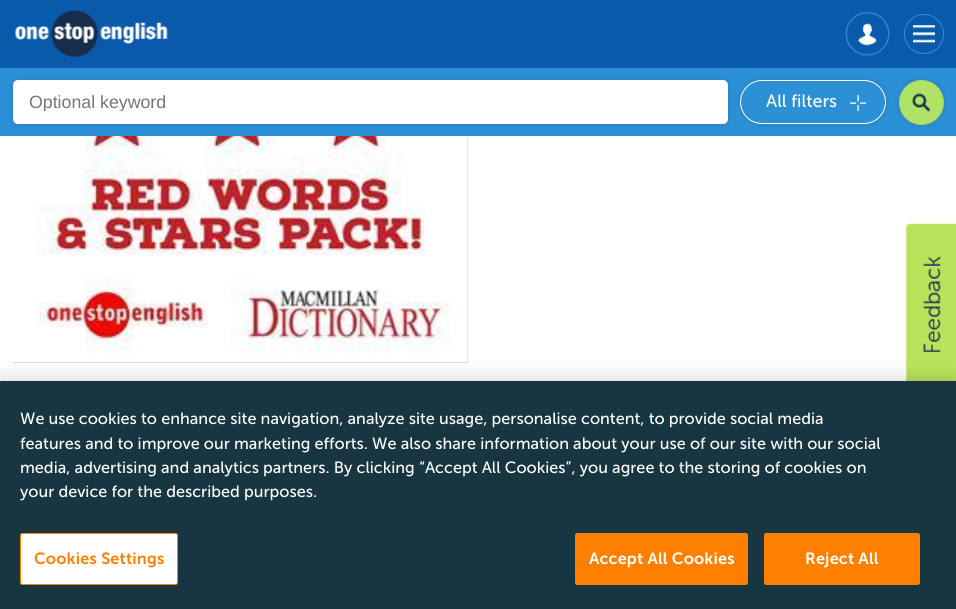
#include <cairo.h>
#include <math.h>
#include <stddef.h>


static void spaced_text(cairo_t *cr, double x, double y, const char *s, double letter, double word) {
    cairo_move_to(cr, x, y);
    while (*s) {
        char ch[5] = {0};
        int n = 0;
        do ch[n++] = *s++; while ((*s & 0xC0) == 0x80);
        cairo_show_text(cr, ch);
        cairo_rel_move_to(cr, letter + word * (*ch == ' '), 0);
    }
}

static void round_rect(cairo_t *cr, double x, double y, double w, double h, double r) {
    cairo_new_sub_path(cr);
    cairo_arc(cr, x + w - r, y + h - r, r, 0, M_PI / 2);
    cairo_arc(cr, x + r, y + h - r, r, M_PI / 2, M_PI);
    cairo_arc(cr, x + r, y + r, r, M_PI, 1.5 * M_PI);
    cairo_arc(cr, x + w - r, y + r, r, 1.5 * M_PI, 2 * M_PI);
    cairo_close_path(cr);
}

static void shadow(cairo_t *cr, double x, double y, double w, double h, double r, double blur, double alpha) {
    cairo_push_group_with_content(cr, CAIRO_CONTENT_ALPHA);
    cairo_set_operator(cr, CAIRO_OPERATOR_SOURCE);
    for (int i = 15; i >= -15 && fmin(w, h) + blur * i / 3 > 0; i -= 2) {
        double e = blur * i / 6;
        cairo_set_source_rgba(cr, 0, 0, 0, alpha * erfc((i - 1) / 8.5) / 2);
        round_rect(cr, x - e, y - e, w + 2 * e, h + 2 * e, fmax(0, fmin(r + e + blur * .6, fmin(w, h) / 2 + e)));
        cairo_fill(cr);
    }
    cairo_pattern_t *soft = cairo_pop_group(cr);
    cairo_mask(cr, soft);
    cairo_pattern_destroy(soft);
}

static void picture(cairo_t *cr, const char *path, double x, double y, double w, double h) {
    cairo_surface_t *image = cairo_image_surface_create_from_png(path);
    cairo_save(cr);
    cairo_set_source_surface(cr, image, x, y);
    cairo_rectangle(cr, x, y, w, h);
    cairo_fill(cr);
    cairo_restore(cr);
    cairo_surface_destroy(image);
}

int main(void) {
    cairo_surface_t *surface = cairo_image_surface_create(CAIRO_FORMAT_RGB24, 956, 609);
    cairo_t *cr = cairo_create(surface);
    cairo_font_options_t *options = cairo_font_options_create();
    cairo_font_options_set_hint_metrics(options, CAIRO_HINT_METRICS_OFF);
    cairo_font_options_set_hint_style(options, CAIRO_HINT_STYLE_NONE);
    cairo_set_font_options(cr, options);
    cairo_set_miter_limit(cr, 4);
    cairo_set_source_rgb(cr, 1, 1, 1);
    cairo_paint(cr);
    cairo_set_source_rgb(cr, 0.039, 0.353, 0.671);
    cairo_rectangle(cr, 0, 0, 956, 68);
    cairo_fill(cr);
    picture(cr, "img1.png", 15, 9, 153, 48);
    picture(cr, "img2.png", 845, 11, 45, 46);
    cairo_arc(cr, 924, 34, 19.5, 0, 2 * M_PI);
    cairo_set_source_rgb(cr, 0.173, 0.565, 0.839);
    cairo_set_line_width(cr, 1);
    cairo_stroke(cr);
    picture(cr, "img3.png", 913, 25, 22, 18);
    cairo_rectangle(cr, 0, 68, 956, 68);
    cairo_fill(cr);
    cairo_set_source_rgb(cr, 0, 0, 0);
    shadow(cr, 13, 80, 715, 44, 5, 3, 0.15);
    cairo_set_source_rgb(cr, 1, 1, 1);
    round_rect(cr, 13, 80, 715, 44, 5);
    cairo_fill(cr);
    cairo_save(cr);
    cairo_rectangle(cr, 29, 91, 665, 20);
    cairo_clip(cr);
    cairo_select_font_face(cr, "Liberation Sans", CAIRO_FONT_SLANT_NORMAL, CAIRO_FONT_WEIGHT_NORMAL);
    cairo_set_font_size(cr, 17.75);
    cairo_set_source_rgb(cr, 0.459, 0.459, 0.459);
    cairo_move_to(cr, 29, 108);
    cairo_show_text(cr, "Optional keyword");
    cairo_restore(cr);
    cairo_set_source_rgb(cr, 0, 0, 0);
    shadow(cr, 740, 80, 146, 44, 22, 3, 0.15);
    cairo_set_source_rgb(cr, 0.173, 0.565, 0.839);
    round_rect(cr, 740.5, 80.5, 145, 43, 21.5);
    cairo_fill_preserve(cr);
    cairo_set_source_rgb(cr, 1, 1, 1);
    cairo_stroke(cr);
    cairo_select_font_face(cr, "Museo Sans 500", CAIRO_FONT_SLANT_NORMAL, CAIRO_FONT_WEIGHT_NORMAL);
    cairo_set_font_size(cr, 17.75);
    cairo_move_to(cr, 766, 107);
    cairo_show_text(cr, "All filters");
    picture(cr, "img4.png", 850, 95, 16, 16);
    cairo_set_source_rgb(cr, 0, 0, 0);
    shadow(cr, 899, 80, 45, 45, 22.5, 3, 0.15);
    cairo_set_source_rgb(cr, 0.69, 0.886, 0.396);
    cairo_arc(cr, 921.5, 102.5, 22.5, 0, 2 * M_PI);
    cairo_fill(cr);
    picture(cr, "img5.png", 899, 80, 45, 45);
    cairo_set_source_rgb(cr, 0.863, 0.863, 0.863);
    cairo_rectangle(cr, 13, 136, 455, 227);
    cairo_fill(cr);
    picture(cr, "img6.png", 13, 136, 455, 226);
    picture(cr, "img7.png", 906, 223, 50, 158);
    cairo_set_source_rgb(cr, 0, 0, 0);
    shadow(cr, 0, 381, 956, 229, 0, 11, 0.2);
    cairo_set_source_rgb(cr, 0.094, 0.212, 0.259);
    cairo_rectangle(cr, 0, 381, 956, 228);
    cairo_fill(cr);
    cairo_set_font_size(cr, 16.25);
    cairo_set_source_rgb(cr, 1, 1, 1);
    cairo_move_to(cr, 20, 424);
    cairo_show_text(cr, "We use cookies to enhance site navigation, analyze site usage, personalise content, to provide social media");
    cairo_move_to(cr, 20, 449);
    cairo_show_text(cr, "features and to improve our marketing efforts. We also share information about your use of our site with our social");
    cairo_move_to(cr, 20, 473);
    cairo_show_text(cr, "media, advertising and analytics partners. By clicking “Accept All Cookies”, you agree to the storing of cookies on");
    cairo_move_to(cr, 20, 497);
    cairo_show_text(cr, "your device for the described purposes.");
    round_rect(cr, 20.5, 533.5, 157, 51, 2);
    cairo_fill_preserve(cr);
    cairo_set_source_rgb(cr, 1, 0.502, 0);
    cairo_stroke(cr);
    cairo_select_font_face(cr, "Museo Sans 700 SemiBold", CAIRO_FONT_SLANT_NORMAL, CAIRO_FONT_WEIGHT_NORMAL);
    spaced_text(cr, 34, 564, "Cookies Settings", 0.2, 0);
    round_rect(cr, 575.5, 533.5, 172, 51, 2);
    cairo_fill_preserve(cr);
    cairo_stroke(cr);
    cairo_set_source_rgb(cr, 1, 1, 1);
    spaced_text(cr, 589, 564, "Accept All Cookies", 0.2, 0);
    cairo_set_source_rgb(cr, 1, 0.502, 0);
    round_rect(cr, 764.5, 533.5, 155, 51, 2);
    cairo_fill_preserve(cr);
    cairo_stroke(cr);
    cairo_set_source_rgb(cr, 1, 1, 1);
    spaced_text(cr, 805, 564, "Reject All", 0.2, 0);
    cairo_surface_write_to_png(surface, "page.png");
    cairo_font_options_destroy(options);
    cairo_destroy(cr);
    cairo_surface_destroy(surface);
    return 0;
}
